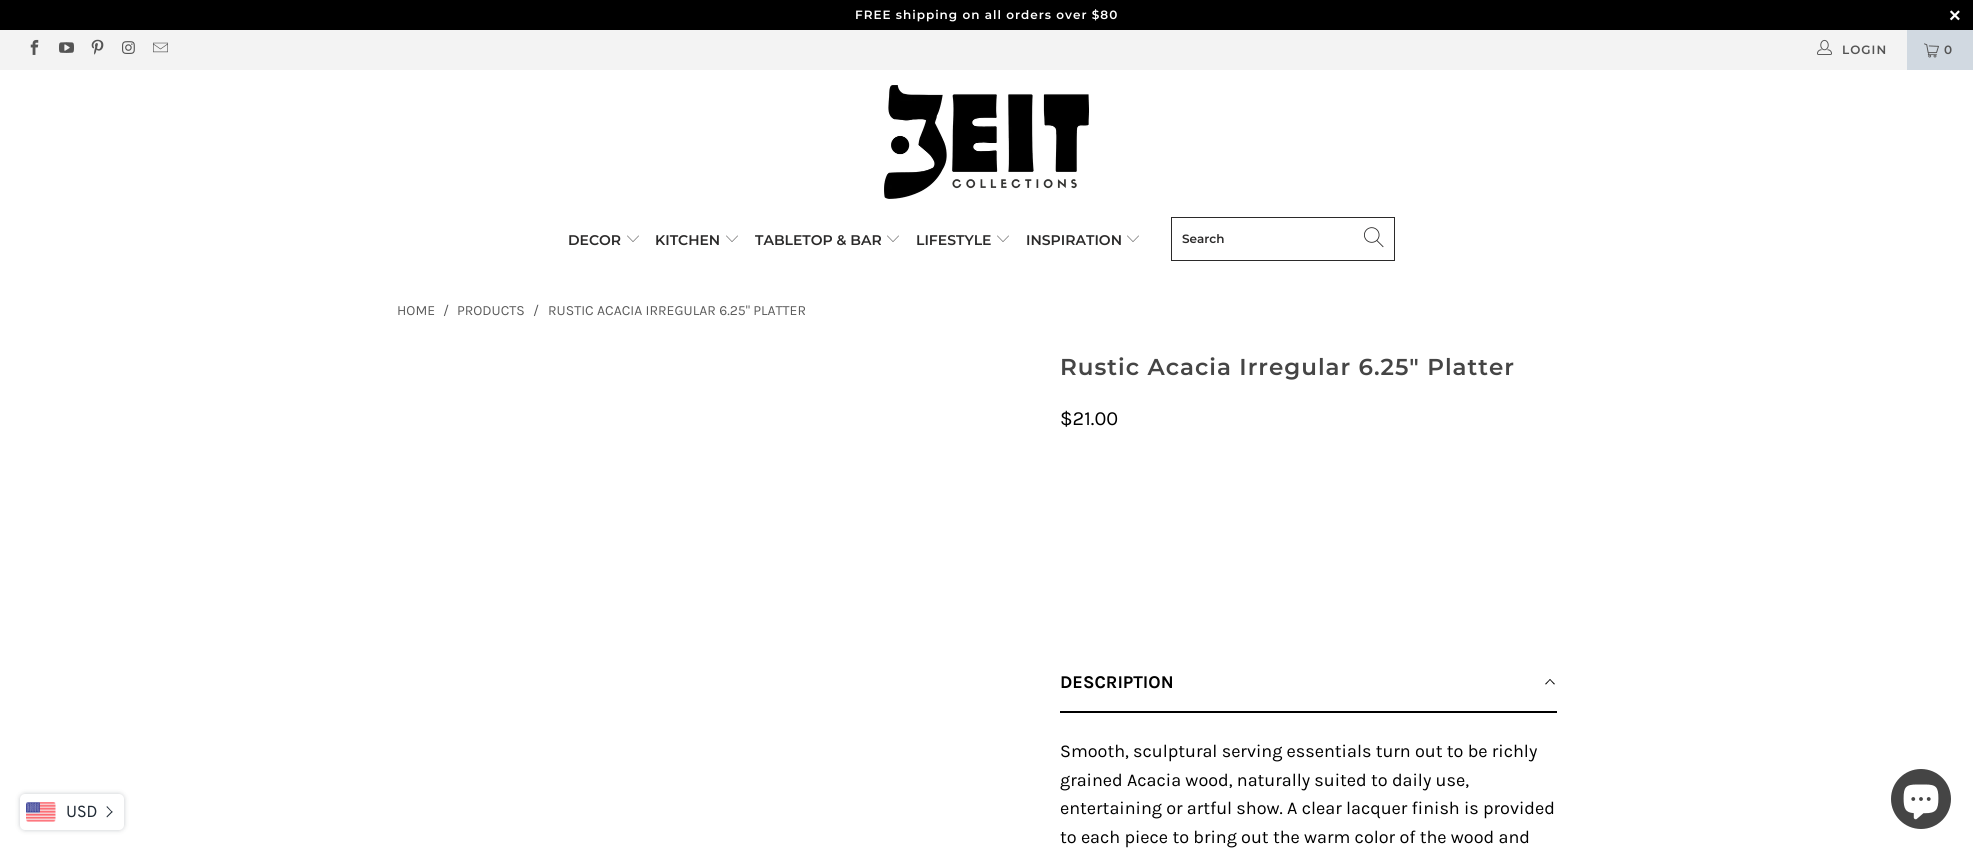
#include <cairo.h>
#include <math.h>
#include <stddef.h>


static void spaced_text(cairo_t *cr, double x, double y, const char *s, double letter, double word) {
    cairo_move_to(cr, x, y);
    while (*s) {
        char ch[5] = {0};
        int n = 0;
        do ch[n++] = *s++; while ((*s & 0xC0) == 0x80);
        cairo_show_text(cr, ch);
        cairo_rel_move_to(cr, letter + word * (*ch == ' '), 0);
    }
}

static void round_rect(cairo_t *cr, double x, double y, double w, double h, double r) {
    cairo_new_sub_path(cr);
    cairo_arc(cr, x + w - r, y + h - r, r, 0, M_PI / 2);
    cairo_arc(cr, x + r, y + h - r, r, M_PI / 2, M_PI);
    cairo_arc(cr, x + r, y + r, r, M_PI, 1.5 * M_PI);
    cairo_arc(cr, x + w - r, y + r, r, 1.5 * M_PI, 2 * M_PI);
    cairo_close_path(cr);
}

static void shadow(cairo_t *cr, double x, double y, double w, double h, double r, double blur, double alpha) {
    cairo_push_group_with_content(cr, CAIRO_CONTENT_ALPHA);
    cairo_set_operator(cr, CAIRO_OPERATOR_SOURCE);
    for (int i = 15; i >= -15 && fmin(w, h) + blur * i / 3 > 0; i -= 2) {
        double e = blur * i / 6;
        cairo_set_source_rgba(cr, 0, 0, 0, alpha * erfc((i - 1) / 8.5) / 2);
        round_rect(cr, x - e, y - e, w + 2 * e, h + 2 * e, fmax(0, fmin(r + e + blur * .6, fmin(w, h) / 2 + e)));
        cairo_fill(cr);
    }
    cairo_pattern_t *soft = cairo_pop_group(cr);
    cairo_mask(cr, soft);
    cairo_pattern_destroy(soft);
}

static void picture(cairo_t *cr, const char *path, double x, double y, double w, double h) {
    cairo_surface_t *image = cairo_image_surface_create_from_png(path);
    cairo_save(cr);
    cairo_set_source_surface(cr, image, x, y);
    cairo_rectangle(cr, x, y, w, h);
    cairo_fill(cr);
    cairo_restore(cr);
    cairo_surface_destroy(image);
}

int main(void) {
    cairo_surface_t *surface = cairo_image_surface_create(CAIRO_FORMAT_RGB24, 1973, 850);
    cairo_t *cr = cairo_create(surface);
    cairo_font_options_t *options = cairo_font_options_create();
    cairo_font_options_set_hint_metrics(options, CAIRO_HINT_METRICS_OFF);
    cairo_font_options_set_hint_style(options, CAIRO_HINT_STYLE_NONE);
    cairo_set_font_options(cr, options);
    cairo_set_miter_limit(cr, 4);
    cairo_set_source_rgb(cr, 1, 1, 1);
    cairo_paint(cr);
    cairo_set_source_rgb(cr, 0, 0, 0);
    cairo_rectangle(cr, 0, 0, 1973, 30);
    cairo_fill(cr);
    cairo_select_font_face(cr, "Montserrat SemiBold", CAIRO_FONT_SLANT_NORMAL, CAIRO_FONT_WEIGHT_NORMAL);
    cairo_set_font_size(cr, 12);
    cairo_set_source_rgb(cr, 1, 1, 1);
    spaced_text(cr, 855, 19, "FREE shipping on all orders over $80", 1, 0);
    cairo_select_font_face(cr, "Liberation Sans", CAIRO_FONT_SLANT_NORMAL, CAIRO_FONT_WEIGHT_BOLD);
    cairo_set_font_size(cr, 20);
    spaced_text(cr, 1949, 22, "×", 1, 0);
    cairo_set_source_rgb(cr, 0.953, 0.953, 0.953);
    cairo_rectangle(cr, 0, 30, 1907, 40);
    cairo_fill(cr);
    picture(cr, "img1.png", 30, 39, 9, 16);
    picture(cr, "img2.png", 59, 42, 15, 11);
    picture(cr, "img3.png", 91, 39, 13, 16);
    picture(cr, "img4.png", 122, 41, 13, 13);
    picture(cr, "img5.png", 153, 42, 15, 11);
    picture(cr, "img6.png", 1817, 39, 15, 16);
    cairo_select_font_face(cr, "Montserrat SemiBold", CAIRO_FONT_SLANT_NORMAL, CAIRO_FONT_WEIGHT_NORMAL);
    cairo_set_font_size(cr, 12);
    cairo_set_source_rgb(cr, 0.329, 0.329, 0.329);
    spaced_text(cr, 1842, 54, "LOGIN", 1, 0);
    cairo_set_source_rgb(cr, 0.82, 0.851, 0.882);
    cairo_rectangle(cr, 1907, 30, 66, 40);
    cairo_fill(cr);
    picture(cr, "img7.png", 1924, 43, 15, 15);
    cairo_set_source_rgb(cr, 0.329, 0.329, 0.329);
    spaced_text(cr, 1944, 54, "0", 1, 0);
    picture(cr, "img8.png", 884, 85, 205, 114);
    cairo_set_font_size(cr, 14);
    cairo_set_source_rgb(cr, 0.169, 0.165, 0.165);
    cairo_move_to(cr, 568, 245);
    cairo_show_text(cr, "DECOR");
    picture(cr, "img9.png", 627, 235, 12, 7);
    cairo_move_to(cr, 655, 245);
    cairo_show_text(cr, "KITCHEN");
    picture(cr, "img9.png", 726, 235, 12, 7);
    cairo_move_to(cr, 755, 245);
    cairo_show_text(cr, "TABLETOP & BAR");
    picture(cr, "img9.png", 887, 235, 12, 7);
    cairo_move_to(cr, 916, 245);
    cairo_show_text(cr, "LIFESTYLE");
    picture(cr, "img9.png", 997, 235, 12, 7);
    cairo_move_to(cr, 1026, 245);
    cairo_show_text(cr, "INSPIRATION");
    picture(cr, "img9.png", 1127, 235, 12, 7);
    cairo_rectangle(cr, 1171.5, 217.5, 223, 43);
    cairo_set_line_width(cr, 1);
    cairo_stroke(cr);
    cairo_set_font_size(cr, 12);
    cairo_move_to(cr, 1182, 243);
    cairo_show_text(cr, "Search");
    picture(cr, "img10.png", 1364, 227, 20, 21);
    cairo_set_source_rgb(cr, 0.129, 0.169, 0.212);
    shadow(cr, 20, 794, 104, 36, 5, 2.5, 0.25);
    cairo_set_source_rgb(cr, 1, 1, 1);
    round_rect(cr, 20, 794, 104, 36, 5);
    cairo_fill(cr);
    picture(cr, "img11.png", 26, 802, 30, 20);
    cairo_select_font_face(cr, "Overpass", CAIRO_FONT_SLANT_NORMAL, CAIRO_FONT_WEIGHT_NORMAL);
    cairo_set_font_size(cr, 16);
    cairo_set_source_rgb(cr, 0.129, 0.169, 0.212);
    cairo_move_to(cr, 66, 817);
    cairo_show_text(cr, "USD");
    cairo_new_path(cr);
    cairo_move_to(cr, 106.5, 807);
    cairo_line_to(cr, 107, 806);
    cairo_line_to(cr, 112.5, 812);
    cairo_line_to(cr, 112, 812.5);
    cairo_close_path(cr);
    cairo_fill(cr);
    cairo_new_path(cr);
    cairo_move_to(cr, 106.5, 816.5);
    cairo_line_to(cr, 112, 811);
    cairo_line_to(cr, 112.5, 812);
    cairo_line_to(cr, 107, 817.5);
    cairo_close_path(cr);
    cairo_fill(cr);
    cairo_select_font_face(cr, "Karla", CAIRO_FONT_SLANT_NORMAL, CAIRO_FONT_WEIGHT_NORMAL);
    cairo_set_font_size(cr, 14);
    cairo_set_source_rgb(cr, 0.357, 0.357, 0.357);
    cairo_move_to(cr, 397, 315);
    cairo_show_text(cr, "HOME");
    cairo_move_to(cr, 443, 315);
    cairo_show_text(cr, "/");
    cairo_move_to(cr, 457, 315);
    cairo_show_text(cr, "PRODUCTS");
    cairo_move_to(cr, 533, 315);
    cairo_show_text(cr, "/");
    cairo_move_to(cr, 548, 315);
    cairo_show_text(cr, "RUSTIC ACACIA IRREGULAR 6.25\" PLATTER");
    cairo_select_font_face(cr, "Montserrat SemiBold", CAIRO_FONT_SLANT_NORMAL, CAIRO_FONT_WEIGHT_NORMAL);
    cairo_set_font_size(cr, 23);
    cairo_set_source_rgb(cr, 0.271, 0.271, 0.271);
    spaced_text(cr, 1060, 375, "Rustic Acacia Irregular 6.25\" Platter", 1, 0);
    cairo_select_font_face(cr, "Karla", CAIRO_FONT_SLANT_NORMAL, CAIRO_FONT_WEIGHT_NORMAL);
    cairo_set_font_size(cr, 20);
    cairo_set_source_rgb(cr, 0, 0, 0);
    cairo_move_to(cr, 1060, 425);
    cairo_show_text(cr, "$21.00");
    cairo_rectangle(cr, 1060, 711, 497, 2);
    cairo_fill(cr);
    cairo_select_font_face(cr, "Karla", CAIRO_FONT_SLANT_NORMAL, CAIRO_FONT_WEIGHT_BOLD);
    cairo_set_font_size(cr, 18);
    cairo_move_to(cr, 1060, 688);
    cairo_show_text(cr, "DESCRIPTION");
    cairo_new_path(cr);
    cairo_move_to(cr, 1546, 684.5);
    cairo_line_to(cr, 1545, 684);
    cairo_line_to(cr, 1550, 679);
    cairo_line_to(cr, 1550.5, 679.5);
    cairo_close_path(cr);
    cairo_fill(cr);
    cairo_new_path(cr);
    cairo_move_to(cr, 1554, 684.5);
    cairo_line_to(cr, 1549.5, 679.5);
    cairo_line_to(cr, 1550, 679);
    cairo_line_to(cr, 1555, 684);
    cairo_close_path(cr);
    cairo_fill(cr);
    cairo_select_font_face(cr, "Karla", CAIRO_FONT_SLANT_NORMAL, CAIRO_FONT_WEIGHT_NORMAL);
    cairo_move_to(cr, 1060, 757);
    cairo_show_text(cr, "Smooth, sculptural serving essentials turn out to be richly");
    cairo_move_to(cr, 1060, 786);
    cairo_show_text(cr, "grained Acacia wood, naturally suited to daily use,");
    cairo_move_to(cr, 1060, 814);
    cairo_show_text(cr, "entertaining or artful show. A clear lacquer finish is provided");
    cairo_move_to(cr, 1060, 843);
    cairo_show_text(cr, "to each piece to bring out the warm color of the wood and");
    cairo_set_source_rgb(cr, 0.271, 0.271, 0.271);
    cairo_new_path(cr);
    cairo_arc(cr, 1921, 799, 30, 0, 2 * M_PI);
    cairo_fill(cr);
    picture(cr, "img12.png", 1903, 784, 36, 36);
    cairo_surface_write_to_png(surface, "page.png");
    cairo_font_options_destroy(options);
    cairo_destroy(cr);
    cairo_surface_destroy(surface);
    return 0;
}
